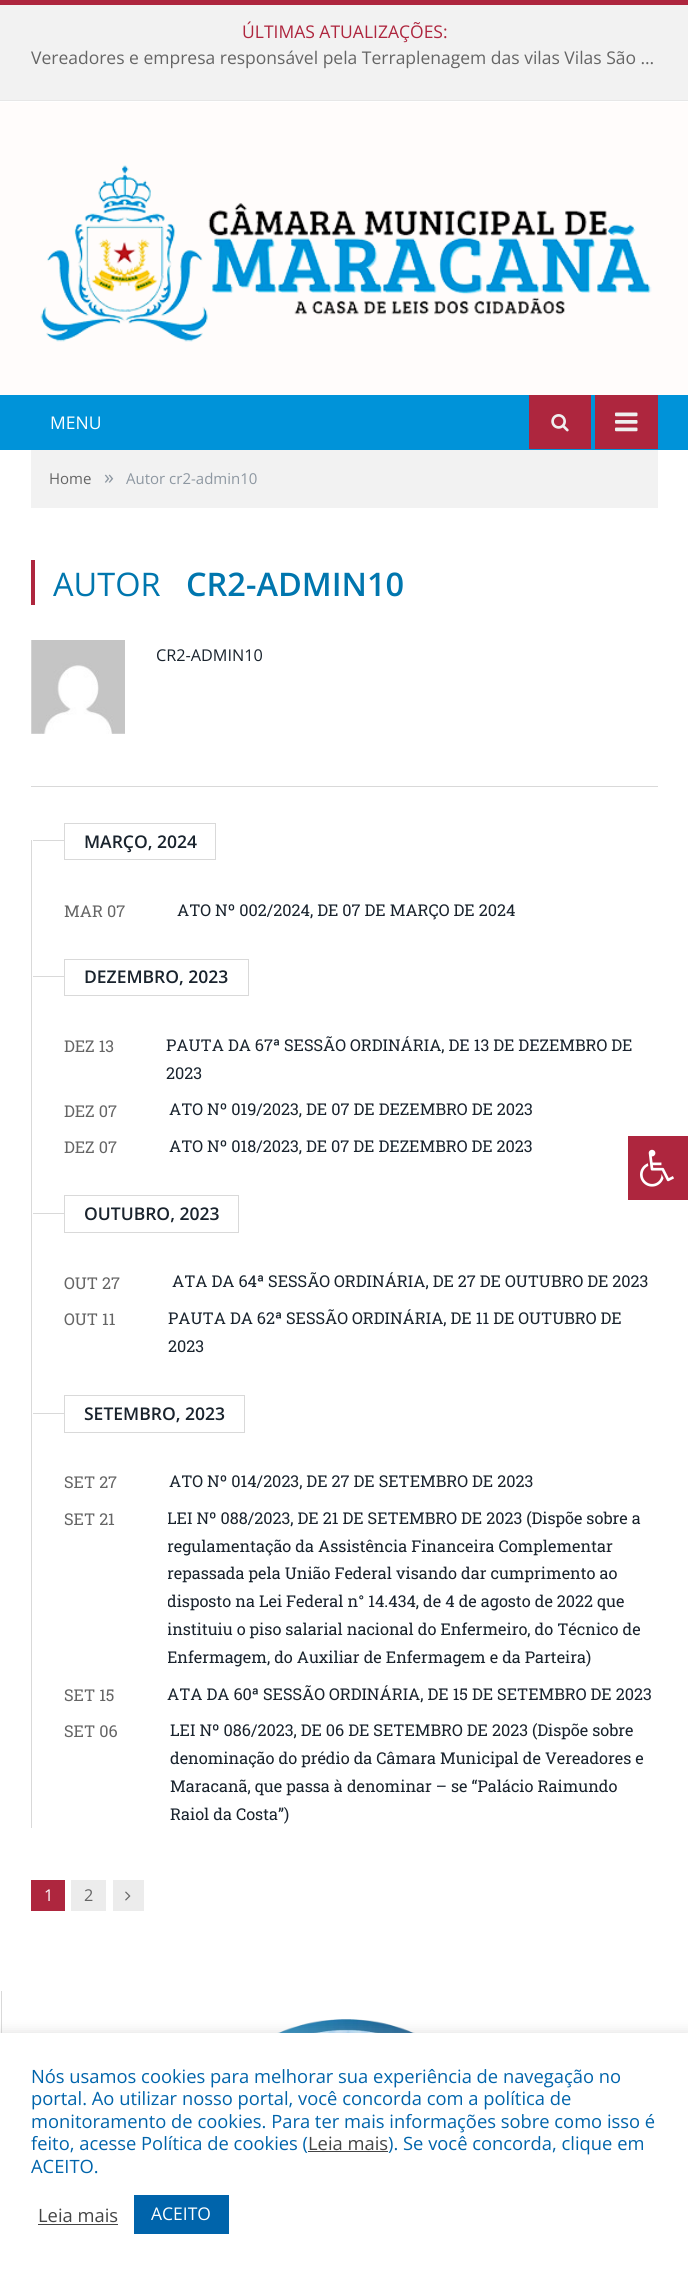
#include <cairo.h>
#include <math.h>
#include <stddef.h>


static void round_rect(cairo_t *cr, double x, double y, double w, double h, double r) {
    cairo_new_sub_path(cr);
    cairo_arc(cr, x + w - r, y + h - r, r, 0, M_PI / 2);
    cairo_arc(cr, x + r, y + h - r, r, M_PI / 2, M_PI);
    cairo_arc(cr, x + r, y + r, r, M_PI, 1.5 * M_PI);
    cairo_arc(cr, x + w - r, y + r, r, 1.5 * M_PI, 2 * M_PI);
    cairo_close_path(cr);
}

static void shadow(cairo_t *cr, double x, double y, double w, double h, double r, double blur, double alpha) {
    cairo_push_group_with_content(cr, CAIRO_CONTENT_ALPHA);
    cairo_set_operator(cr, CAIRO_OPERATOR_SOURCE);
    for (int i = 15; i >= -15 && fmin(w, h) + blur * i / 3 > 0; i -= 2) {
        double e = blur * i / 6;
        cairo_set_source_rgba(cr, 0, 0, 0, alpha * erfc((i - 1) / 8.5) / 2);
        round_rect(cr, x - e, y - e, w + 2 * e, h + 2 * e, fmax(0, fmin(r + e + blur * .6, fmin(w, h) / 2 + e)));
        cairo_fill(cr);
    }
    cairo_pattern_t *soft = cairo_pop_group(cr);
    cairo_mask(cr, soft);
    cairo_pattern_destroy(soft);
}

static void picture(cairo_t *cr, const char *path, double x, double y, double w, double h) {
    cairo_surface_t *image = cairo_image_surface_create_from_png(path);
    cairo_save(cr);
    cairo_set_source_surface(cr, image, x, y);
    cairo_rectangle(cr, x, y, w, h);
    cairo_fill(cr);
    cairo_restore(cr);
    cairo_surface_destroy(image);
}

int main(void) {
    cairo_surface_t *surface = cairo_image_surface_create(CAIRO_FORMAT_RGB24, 688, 2271);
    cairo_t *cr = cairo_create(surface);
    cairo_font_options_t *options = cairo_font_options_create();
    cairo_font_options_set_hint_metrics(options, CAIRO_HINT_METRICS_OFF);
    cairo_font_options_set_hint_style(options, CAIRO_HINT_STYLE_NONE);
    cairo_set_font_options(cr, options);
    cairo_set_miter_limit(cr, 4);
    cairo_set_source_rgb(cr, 1, 1, 1);
    cairo_paint(cr);
    cairo_set_source_rgb(cr, 0.949, 0.949, 0.949);
    cairo_rectangle(cr, 0, 5, 688, 95);
    cairo_fill(cr);
    cairo_set_source_rgb(cr, 0.682, 0.149, 0.243);
    cairo_rectangle(cr, 0, 0, 688, 5);
    cairo_fill(cr);
    cairo_set_source_rgb(cr, 0.906, 0.906, 0.906);
    cairo_rectangle(cr, 0, 100, 688, 1);
    cairo_fill(cr);
    cairo_select_font_face(cr, "Open Sans", CAIRO_FONT_SLANT_NORMAL, CAIRO_FONT_WEIGHT_NORMAL);
    cairo_set_font_size(cr, 17.5);
    cairo_set_source_rgb(cr, 0.682, 0.149, 0.243);
    cairo_move_to(cr, 242, 38);
    cairo_show_text(cr, "ÚLTIMAS ATUALIZAÇÕES:");
    cairo_set_source_rgb(cr, 0.396, 0.396, 0.396);
    cairo_move_to(cr, 31, 64);
    cairo_show_text(cr, "Vereadores e empresa responsável pela Terraplenagem das vilas Vilas São …");
    cairo_set_source_rgb(cr, 1, 0.988, 0.984);
    cairo_rectangle(cr, 0, 102, 688, 293);
    cairo_fill(cr);
    picture(cr, "img1.png", 40, 165, 612, 177);
    cairo_set_source_rgb(cr, 0, 0.576, 0.851);
    cairo_rectangle(cr, 0, 395, 688, 55);
    cairo_fill(cr);
    cairo_set_source_rgb(cr, 1, 1, 1);
    cairo_move_to(cr, 50, 429);
    cairo_show_text(cr, "MENU");
    cairo_set_source_rgb(cr, 0.682, 0.149, 0.243);
    cairo_rectangle(cr, 529, 395, 62, 54);
    cairo_fill(cr);
    picture(cr, "img2.png", 551, 414, 18, 18);
    cairo_rectangle(cr, 595, 395, 63, 54);
    cairo_fill(cr);
    picture(cr, "img3.png", 615, 412, 23, 20);
    cairo_set_source_rgb(cr, 0.949, 0.949, 0.949);
    cairo_rectangle(cr, 31, 450, 627, 58);
    cairo_fill(cr);
    cairo_set_font_size(cr, 15);
    cairo_set_source_rgb(cr, 0.396, 0.396, 0.396);
    cairo_move_to(cr, 49, 484);
    cairo_show_text(cr, "Home");
    cairo_set_font_size(cr, 20);
    cairo_set_source_rgb(cr, 0.553, 0.592, 0.631);
    cairo_move_to(cr, 104, 484);
    cairo_show_text(cr, "»");
    cairo_set_font_size(cr, 15);
    cairo_move_to(cr, 126, 484);
    cairo_show_text(cr, "Autor cr2-admin10");
    cairo_set_source_rgb(cr, 0.682, 0.149, 0.243);
    cairo_rectangle(cr, 31, 560, 4, 45);
    cairo_fill(cr);
    cairo_set_font_size(cr, 32.5);
    cairo_set_source_rgb(cr, 0, 0.463, 0.682);
    cairo_move_to(cr, 53, 596);
    cairo_show_text(cr, "AUTOR");
    cairo_select_font_face(cr, "Open Sans SemiBold", CAIRO_FONT_SLANT_NORMAL, CAIRO_FONT_WEIGHT_NORMAL);
    cairo_move_to(cr, 186, 596);
    cairo_show_text(cr, "CR2-ADMIN10");
    cairo_set_source_rgb(cr, 0.851, 0.851, 0.851);
    cairo_rectangle(cr, 31, 786, 627, 1);
    cairo_fill(cr);
    picture(cr, "img4.png", 31, 640, 94, 94);
    cairo_select_font_face(cr, "Open Sans", CAIRO_FONT_SLANT_NORMAL, CAIRO_FONT_WEIGHT_NORMAL);
    cairo_set_font_size(cr, 16.25);
    cairo_set_source_rgb(cr, 0.098, 0.137, 0.176);
    cairo_move_to(cr, 156, 661);
    cairo_show_text(cr, "CR2-ADMIN10");
    cairo_set_source_rgb(cr, 0.851, 0.851, 0.851);
    cairo_rectangle(cr, 31, 840, 1, 988);
    cairo_fill(cr);
    cairo_rectangle(cr, 64.5, 823.5, 151, 36);
    cairo_set_line_width(cr, 1);
    cairo_stroke(cr);
    cairo_rectangle(cr, 33, 840, 31, 1);
    cairo_fill(cr);
    cairo_select_font_face(cr, "Open Sans SemiBold", CAIRO_FONT_SLANT_NORMAL, CAIRO_FONT_WEIGHT_NORMAL);
    cairo_set_font_size(cr, 17.5);
    cairo_set_source_rgb(cr, 0.098, 0.137, 0.176);
    cairo_move_to(cr, 84, 848);
    cairo_show_text(cr, "MARÇO, 2024");
    cairo_select_font_face(cr, "Roboto Slab", CAIRO_FONT_SLANT_NORMAL, CAIRO_FONT_WEIGHT_NORMAL);
    cairo_set_font_size(cr, 16.25);
    cairo_set_source_rgb(cr, 0.396, 0.396, 0.396);
    cairo_move_to(cr, 64, 917);
    cairo_show_text(cr, "MAR 07");
    cairo_set_source_rgb(cr, 0.098, 0.137, 0.176);
    cairo_move_to(cr, 177, 916);
    cairo_show_text(cr, "ATO Nº 002/2024, DE 07 DE MARÇO DE 2024");
    cairo_rectangle(cr, 64.5, 959.5, 184, 36);
    cairo_set_source_rgb(cr, 0.851, 0.851, 0.851);
    cairo_stroke(cr);
    cairo_rectangle(cr, 33, 976, 31, 1);
    cairo_fill(cr);
    cairo_select_font_face(cr, "Open Sans SemiBold", CAIRO_FONT_SLANT_NORMAL, CAIRO_FONT_WEIGHT_NORMAL);
    cairo_set_font_size(cr, 17.5);
    cairo_set_source_rgb(cr, 0.098, 0.137, 0.176);
    cairo_move_to(cr, 84, 983);
    cairo_show_text(cr, "DEZEMBRO, 2023");
    cairo_select_font_face(cr, "Roboto Slab", CAIRO_FONT_SLANT_NORMAL, CAIRO_FONT_WEIGHT_NORMAL);
    cairo_set_font_size(cr, 16.25);
    cairo_set_source_rgb(cr, 0.396, 0.396, 0.396);
    cairo_move_to(cr, 64, 1052);
    cairo_show_text(cr, "DEZ 13");
    cairo_set_source_rgb(cr, 0.098, 0.137, 0.176);
    cairo_move_to(cr, 166, 1051);
    cairo_show_text(cr, "PAUTA DA 67ª SESSÃO ORDINÁRIA, DE 13 DE DEZEMBRO DE");
    cairo_move_to(cr, 166, 1079);
    cairo_show_text(cr, "2023");
    cairo_set_source_rgb(cr, 0.396, 0.396, 0.396);
    cairo_move_to(cr, 64, 1117);
    cairo_show_text(cr, "DEZ 07");
    cairo_set_source_rgb(cr, 0.098, 0.137, 0.176);
    cairo_move_to(cr, 169, 1115);
    cairo_show_text(cr, "ATO Nº 019/2023, DE 07 DE DEZEMBRO DE 2023");
    cairo_set_source_rgb(cr, 0.396, 0.396, 0.396);
    cairo_move_to(cr, 64, 1153);
    cairo_show_text(cr, "DEZ 07");
    cairo_set_source_rgb(cr, 0.098, 0.137, 0.176);
    cairo_move_to(cr, 169, 1152);
    cairo_show_text(cr, "ATO Nº 018/2023, DE 07 DE DEZEMBRO DE 2023");
    cairo_rectangle(cr, 64.5, 1195.5, 174, 37);
    cairo_set_source_rgb(cr, 0.851, 0.851, 0.851);
    cairo_stroke(cr);
    cairo_rectangle(cr, 33, 1213, 31, 1);
    cairo_fill(cr);
    cairo_select_font_face(cr, "Open Sans SemiBold", CAIRO_FONT_SLANT_NORMAL, CAIRO_FONT_WEIGHT_NORMAL);
    cairo_set_font_size(cr, 17.5);
    cairo_set_source_rgb(cr, 0.098, 0.137, 0.176);
    cairo_move_to(cr, 84, 1220);
    cairo_show_text(cr, "OUTUBRO, 2023");
    cairo_select_font_face(cr, "Roboto Slab", CAIRO_FONT_SLANT_NORMAL, CAIRO_FONT_WEIGHT_NORMAL);
    cairo_set_font_size(cr, 16.25);
    cairo_set_source_rgb(cr, 0.396, 0.396, 0.396);
    cairo_move_to(cr, 64, 1289);
    cairo_show_text(cr, "OUT 27");
    cairo_set_source_rgb(cr, 0.098, 0.137, 0.176);
    cairo_move_to(cr, 172, 1287);
    cairo_show_text(cr, "ATA DA 64ª SESSÃO ORDINÁRIA, DE 27 DE OUTUBRO DE 2023");
    cairo_set_source_rgb(cr, 0.396, 0.396, 0.396);
    cairo_move_to(cr, 64, 1325);
    cairo_show_text(cr, "OUT 11");
    cairo_set_source_rgb(cr, 0.098, 0.137, 0.176);
    cairo_move_to(cr, 168, 1324);
    cairo_show_text(cr, "PAUTA DA 62ª SESSÃO ORDINÁRIA, DE 11 DE OUTUBRO DE");
    cairo_move_to(cr, 168, 1352);
    cairo_show_text(cr, "2023");
    cairo_rectangle(cr, 64.5, 1395.5, 180, 37);
    cairo_set_source_rgb(cr, 0.851, 0.851, 0.851);
    cairo_stroke(cr);
    cairo_rectangle(cr, 33, 1413, 31, 1);
    cairo_fill(cr);
    cairo_select_font_face(cr, "Open Sans SemiBold", CAIRO_FONT_SLANT_NORMAL, CAIRO_FONT_WEIGHT_NORMAL);
    cairo_set_font_size(cr, 17.5);
    cairo_set_source_rgb(cr, 0.098, 0.137, 0.176);
    cairo_move_to(cr, 84, 1420);
    cairo_show_text(cr, "SETEMBRO, 2023");
    cairo_select_font_face(cr, "Roboto Slab", CAIRO_FONT_SLANT_NORMAL, CAIRO_FONT_WEIGHT_NORMAL);
    cairo_set_font_size(cr, 16.25);
    cairo_set_source_rgb(cr, 0.396, 0.396, 0.396);
    cairo_move_to(cr, 64, 1488);
    cairo_show_text(cr, "SET 27");
    cairo_set_source_rgb(cr, 0.098, 0.137, 0.176);
    cairo_move_to(cr, 169, 1487);
    cairo_show_text(cr, "ATO Nº 014/2023, DE 27 DE SETEMBRO DE 2023");
    cairo_set_source_rgb(cr, 0.396, 0.396, 0.396);
    cairo_move_to(cr, 64, 1525);
    cairo_show_text(cr, "SET 21");
    cairo_save(cr);
    cairo_rectangle(cr, 168, 1504, 490, 167);
    cairo_clip(cr);
    cairo_set_source_rgb(cr, 0.098, 0.137, 0.176);
    cairo_move_to(cr, 167, 1524);
    cairo_show_text(cr, "LEI Nº 088/2023, DE 21 DE SETEMBRO DE 2023 (Dispõe sobre a");
    cairo_move_to(cr, 167, 1552);
    cairo_show_text(cr, "regulamentação da Assistência Financeira Complementar");
    cairo_move_to(cr, 167, 1579);
    cairo_show_text(cr, "repassada pela União Federal visando dar cumprimento ao");
    cairo_move_to(cr, 167, 1607);
    cairo_show_text(cr, "disposto na Lei Federal n° 14.434, de 4 de agosto de 2022 que");
    cairo_move_to(cr, 167, 1635);
    cairo_show_text(cr, "instituiu o piso salarial nacional do Enfermeiro, do Técnico de");
    cairo_move_to(cr, 167, 1663);
    cairo_show_text(cr, "Enfermagem, do Auxiliar de Enfermagem e da Parteira)");
    cairo_restore(cr);
    cairo_move_to(cr, 64, 1701);
    cairo_show_text(cr, "SET 15");
    cairo_set_source_rgb(cr, 0.098, 0.137, 0.176);
    cairo_move_to(cr, 167, 1700);
    cairo_show_text(cr, "ATA DA 60ª SESSÃO ORDINÁRIA, DE 15 DE SETEMBRO DE 2023");
    cairo_set_source_rgb(cr, 0.396, 0.396, 0.396);
    cairo_move_to(cr, 64, 1737);
    cairo_show_text(cr, "SET 06");
    cairo_set_source_rgb(cr, 0.098, 0.137, 0.176);
    cairo_move_to(cr, 170, 1736);
    cairo_show_text(cr, "LEI Nº 086/2023, DE 06 DE SETEMBRO DE 2023 (Dispõe sobre");
    cairo_move_to(cr, 170, 1764);
    cairo_show_text(cr, "denominação do prédio da Câmara Municipal de Vereadores e");
    cairo_move_to(cr, 170, 1792);
    cairo_show_text(cr, "Maracanã, que passa à denominar – se “Palácio Raimundo");
    cairo_move_to(cr, 170, 1820);
    cairo_show_text(cr, "Raiol da Costa”)");
    cairo_set_source_rgb(cr, 0.682, 0.149, 0.243);
    cairo_rectangle(cr, 31, 1880, 34, 31);
    cairo_fill(cr);
    cairo_select_font_face(cr, "Open Sans", CAIRO_FONT_SLANT_NORMAL, CAIRO_FONT_WEIGHT_NORMAL);
    cairo_set_source_rgb(cr, 1, 1, 1);
    cairo_move_to(cr, 44, 1901);
    cairo_show_text(cr, "1");
    cairo_set_source_rgb(cr, 0.922, 0.922, 0.922);
    cairo_rectangle(cr, 71, 1880, 35, 31);
    cairo_fill(cr);
    cairo_set_source_rgb(cr, 0.396, 0.396, 0.396);
    cairo_move_to(cr, 84, 1901);
    cairo_show_text(cr, "2");
    cairo_set_source_rgb(cr, 0.922, 0.922, 0.922);
    cairo_rectangle(cr, 113, 1880, 31, 31);
    cairo_fill(cr);
    picture(cr, "img5.png", 125, 1891, 6, 10);
    cairo_set_source_rgb(cr, 0.851, 0.851, 0.851);
    cairo_rectangle(cr, 1, 1991, 1, 42);
    cairo_fill(cr);
    picture(cr, "img6.png", 277, 2019, 138, 14);
    cairo_set_source_rgb(cr, 0.682, 0.149, 0.243);
    cairo_rectangle(cr, 628, 1136, 60, 64);
    cairo_fill(cr);
    picture(cr, "img7.png", 640, 1149, 34, 38);
    cairo_set_source_rgb(cr, 0.675, 0.671, 0.671);
    shadow(cr, 0, 2031, 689, 239, 0, 6, 0.3);
    cairo_set_source_rgb(cr, 1, 1, 1);
    cairo_rectangle(cr, 0, 2033, 688, 238);
    cairo_fill(cr);
    cairo_set_font_size(cr, 18.35);
    cairo_set_source_rgb(cr, 0, 0.392, 0.671);
    cairo_move_to(cr, 31, 2083);
    cairo_show_text(cr, "Nós usamos cookies para melhorar sua experiência de navegação no");
    cairo_move_to(cr, 31, 2105);
    cairo_show_text(cr, "portal. Ao utilizar nosso portal, você concorda com a política de");
    cairo_move_to(cr, 31, 2128);
    cairo_show_text(cr, "monitoramento de cookies. Para ter mais informações sobre como isso é");
    cairo_move_to(cr, 31, 2150);
    cairo_show_text(cr, "feito, acesse Política de cookies (");
    cairo_set_source_rgb(cr, 0.267, 0.267, 0.267);
    cairo_move_to(cr, 308, 2150);
    cairo_show_text(cr, "Leia mais");
    cairo_rectangle(cr, 308, 2151, 80, 1);
    cairo_fill(cr);
    cairo_set_source_rgb(cr, 0, 0.392, 0.671);
    cairo_move_to(cr, 388, 2150);
    cairo_show_text(cr, "). Se você concorda, clique em");
    cairo_move_to(cr, 31, 2173);
    cairo_show_text(cr, "ACEITO.");
    cairo_set_source_rgb(cr, 0.267, 0.267, 0.267);
    cairo_move_to(cr, 38, 2222);
    cairo_show_text(cr, "Leia mais");
    cairo_rectangle(cr, 38, 2224, 80, 1);
    cairo_fill(cr);
    cairo_set_source_rgb(cr, 0, 0.392, 0.671);
    cairo_rectangle(cr, 134, 2195, 95, 39);
    cairo_fill(cr);
    cairo_set_font_size(cr, 17.5);
    cairo_set_source_rgb(cr, 1, 1, 1);
    cairo_move_to(cr, 151, 2220);
    cairo_show_text(cr, "ACEITO");
    cairo_surface_write_to_png(surface, "page.png");
    cairo_font_options_destroy(options);
    cairo_destroy(cr);
    cairo_surface_destroy(surface);
    return 0;
}
